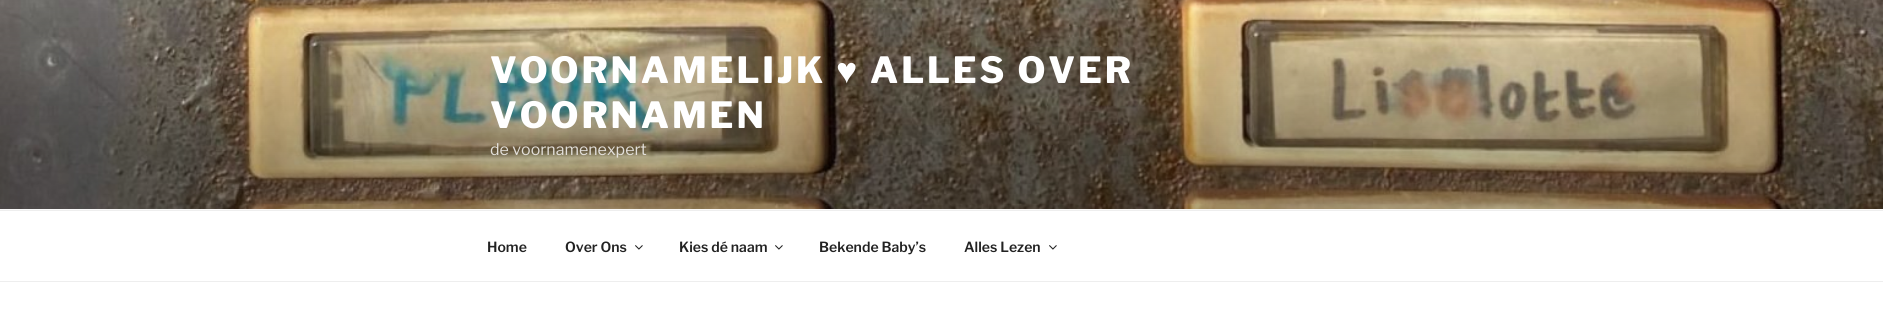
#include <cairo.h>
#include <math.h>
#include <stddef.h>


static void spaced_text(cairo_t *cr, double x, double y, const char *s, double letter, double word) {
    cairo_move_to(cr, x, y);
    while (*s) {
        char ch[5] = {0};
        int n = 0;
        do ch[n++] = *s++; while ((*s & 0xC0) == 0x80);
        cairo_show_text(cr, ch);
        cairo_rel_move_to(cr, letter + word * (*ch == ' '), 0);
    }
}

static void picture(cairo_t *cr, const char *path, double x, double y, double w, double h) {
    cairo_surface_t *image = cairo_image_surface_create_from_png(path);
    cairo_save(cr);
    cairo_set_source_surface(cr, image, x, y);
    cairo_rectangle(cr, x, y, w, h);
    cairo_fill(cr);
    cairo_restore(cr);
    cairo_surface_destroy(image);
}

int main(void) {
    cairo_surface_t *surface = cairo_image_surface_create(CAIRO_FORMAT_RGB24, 1883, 312);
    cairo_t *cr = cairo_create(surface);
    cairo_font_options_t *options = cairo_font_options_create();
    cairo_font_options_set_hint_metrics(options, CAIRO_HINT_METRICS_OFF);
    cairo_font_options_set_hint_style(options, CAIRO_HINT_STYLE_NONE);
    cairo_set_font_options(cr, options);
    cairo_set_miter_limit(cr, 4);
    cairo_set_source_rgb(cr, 1, 1, 1);
    cairo_paint(cr);
    cairo_set_source_rgb(cr, 0.98, 0.98, 0.98);
    cairo_rectangle(cr, 0, 209, 1883, 1);
    cairo_fill(cr);
    picture(cr, "img1.png", 0, 0, 1883, 209);
    cairo_select_font_face(cr, "Libre Franklin Thin", CAIRO_FONT_SLANT_NORMAL, CAIRO_FONT_WEIGHT_NORMAL);
    cairo_set_font_size(cr, 36);
    cairo_set_source_rgb(cr, 1, 1, 1);
    spaced_text(cr, 490, 83, "VOORNAMELIJK", 2.9, 0);
    cairo_select_font_face(cr, "Liberation Sans", CAIRO_FONT_SLANT_NORMAL, CAIRO_FONT_WEIGHT_BOLD);
    spaced_text(cr, 836, 83, "♥", 2.9, 0);
    cairo_select_font_face(cr, "Libre Franklin Thin", CAIRO_FONT_SLANT_NORMAL, CAIRO_FONT_WEIGHT_NORMAL);
    spaced_text(cr, 870, 83, "ALLES OVER", 2.9, 0);
    spaced_text(cr, 490, 128, "VOORNAMEN", 2.9, 0);
    cairo_select_font_face(cr, "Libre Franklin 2 Thin", CAIRO_FONT_SLANT_NORMAL, CAIRO_FONT_WEIGHT_NORMAL);
    cairo_set_font_size(cr, 16);
    cairo_set_source_rgb(cr, 0.89, 0.878, 0.859);
    cairo_move_to(cr, 490, 155);
    cairo_show_text(cr, "de voornamenexpert");
    cairo_set_source_rgb(cr, 0.933, 0.933, 0.933);
    cairo_rectangle(cr, 0, 210, 1883, 1);
    cairo_fill(cr);
    cairo_rectangle(cr, 0, 281, 1883, 1);
    cairo_fill(cr);
    cairo_select_font_face(cr, "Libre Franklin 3 Thin", CAIRO_FONT_SLANT_NORMAL, CAIRO_FONT_WEIGHT_NORMAL);
    cairo_set_font_size(cr, 14);
    cairo_set_source_rgb(cr, 0.133, 0.133, 0.133);
    cairo_move_to(cr, 487, 252);
    cairo_show_text(cr, "Home");
    cairo_move_to(cr, 565, 252);
    cairo_show_text(cr, "Over Ons");
    picture(cr, "img2.png", 635, 245, 8, 5);
    cairo_move_to(cr, 679, 252);
    cairo_show_text(cr, "Kies dé naam");
    picture(cr, "img2.png", 775, 245, 8, 5);
    cairo_move_to(cr, 819, 252);
    cairo_show_text(cr, "Bekende Baby’s");
    cairo_move_to(cr, 964, 252);
    cairo_show_text(cr, "Alles Lezen");
    picture(cr, "img2.png", 1049, 245, 8, 5);
    cairo_surface_write_to_png(surface, "page.png");
    cairo_font_options_destroy(options);
    cairo_destroy(cr);
    cairo_surface_destroy(surface);
    return 0;
}
